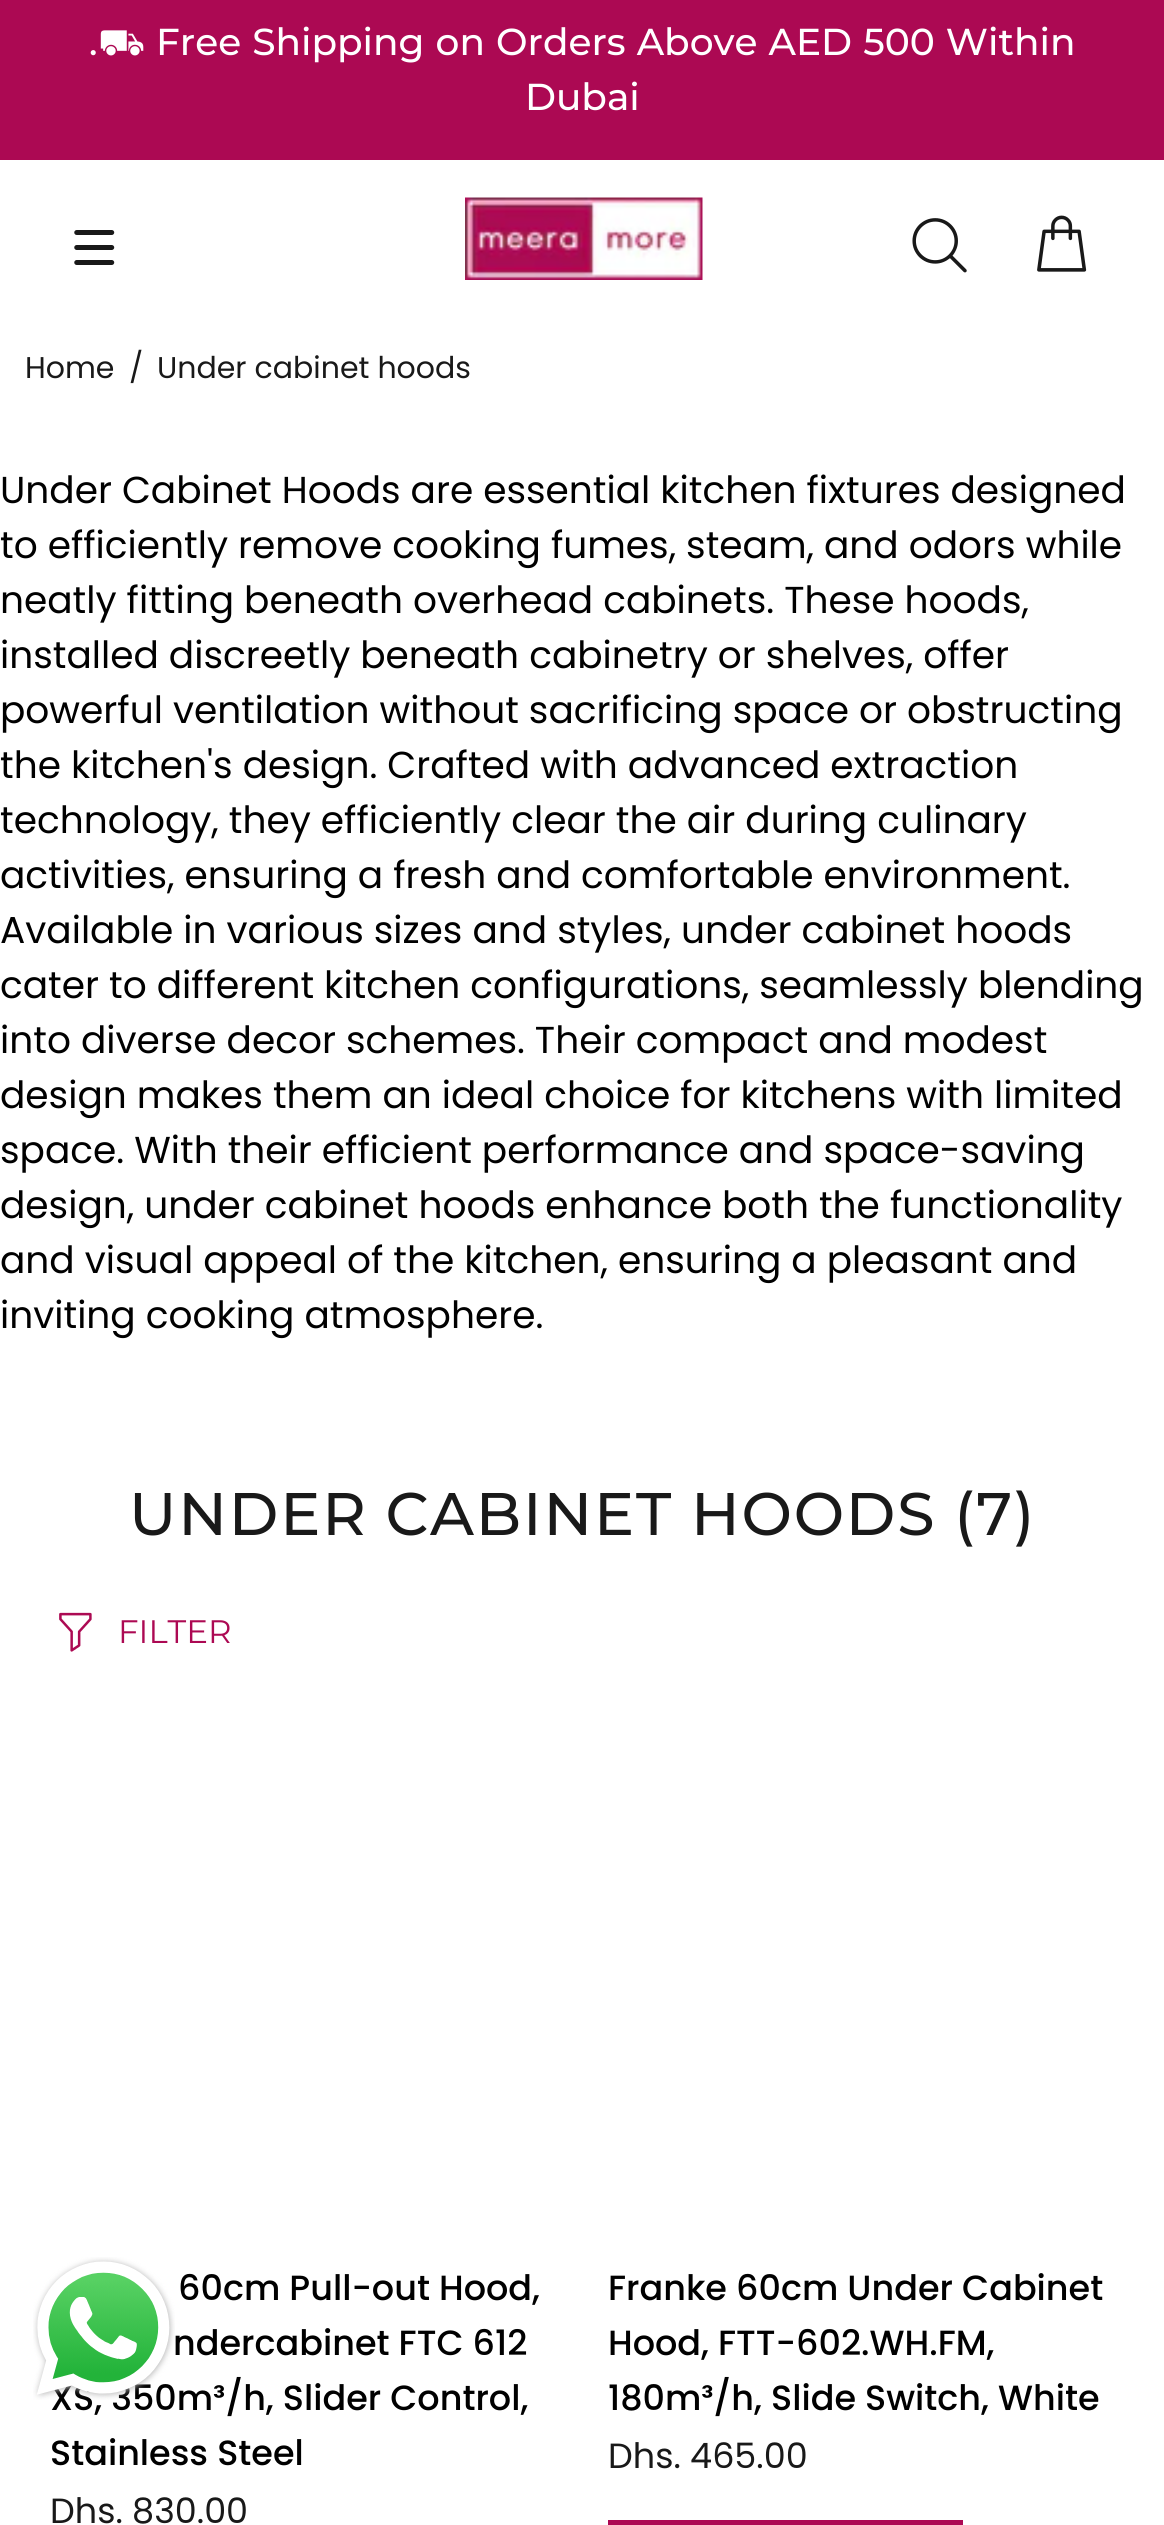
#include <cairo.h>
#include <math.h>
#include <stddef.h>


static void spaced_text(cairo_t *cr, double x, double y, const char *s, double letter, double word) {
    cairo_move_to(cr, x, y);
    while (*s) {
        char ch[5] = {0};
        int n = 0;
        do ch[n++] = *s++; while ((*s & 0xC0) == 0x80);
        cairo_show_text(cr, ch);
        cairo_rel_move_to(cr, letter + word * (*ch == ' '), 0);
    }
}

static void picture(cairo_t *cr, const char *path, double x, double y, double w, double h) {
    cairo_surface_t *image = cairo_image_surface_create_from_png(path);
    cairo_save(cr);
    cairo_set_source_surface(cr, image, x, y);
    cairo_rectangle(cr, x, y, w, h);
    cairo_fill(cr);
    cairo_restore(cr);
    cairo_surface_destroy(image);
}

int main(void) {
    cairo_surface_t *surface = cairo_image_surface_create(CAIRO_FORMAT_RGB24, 1164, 2525);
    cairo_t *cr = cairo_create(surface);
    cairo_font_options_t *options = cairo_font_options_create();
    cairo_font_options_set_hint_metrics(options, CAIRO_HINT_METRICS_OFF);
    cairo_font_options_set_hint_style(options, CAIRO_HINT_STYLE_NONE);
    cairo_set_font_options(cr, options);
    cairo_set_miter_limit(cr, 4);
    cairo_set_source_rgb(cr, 1, 1, 1);
    cairo_paint(cr);
    cairo_set_source_rgb(cr, 0.675, 0.039, 0.325);
    cairo_rectangle(cr, 0, 0, 1164, 160);
    cairo_fill(cr);
    cairo_select_font_face(cr, "Montserrat Medium", CAIRO_FONT_SLANT_NORMAL, CAIRO_FONT_WEIGHT_NORMAL);
    cairo_set_font_size(cr, 37.5);
    cairo_set_source_rgb(cr, 1, 1, 1);
    cairo_move_to(cr, 89, 55);
    cairo_show_text(cr, ".");
    cairo_select_font_face(cr, "STIX Two Math", CAIRO_FONT_SLANT_NORMAL, CAIRO_FONT_WEIGHT_NORMAL);
    cairo_move_to(cr, 98, 55);
    cairo_show_text(cr, "⛟");
    cairo_select_font_face(cr, "Montserrat Medium", CAIRO_FONT_SLANT_NORMAL, CAIRO_FONT_WEIGHT_NORMAL);
    spaced_text(cr, 156, 55, "Free Shipping on Orders Above AED 500 Within", 0, 1);
    cairo_move_to(cr, 525, 110);
    cairo_show_text(cr, "Dubai");
    picture(cr, "img1.png", 74, 230, 41, 35);
    picture(cr, "img2.png", 465, 197, 238, 83);
    picture(cr, "img3.png", 912, 218, 55, 55);
    picture(cr, "img4.png", 1037, 215, 50, 57);
    cairo_select_font_face(cr, "Poppins", CAIRO_FONT_SLANT_NORMAL, CAIRO_FONT_WEIGHT_NORMAL);
    cairo_set_font_size(cr, 30);
    cairo_set_source_rgb(cr, 0.098, 0.098, 0.098);
    cairo_move_to(cr, 25, 378);
    cairo_show_text(cr, "Home");
    cairo_move_to(cr, 129, 378);
    cairo_show_text(cr, "/");
    cairo_move_to(cr, 157, 378);
    cairo_show_text(cr, "Under cabinet hoods");
    cairo_set_font_size(cr, 37.5);
    cairo_set_source_rgb(cr, 0, 0, 0);
    cairo_move_to(cr, 0, 503);
    cairo_show_text(cr, "Under Cabinet Hoods are essential kitchen fixtures designed");
    cairo_move_to(cr, 0, 558);
    cairo_show_text(cr, "to efficiently remove cooking fumes, steam, and odors while");
    cairo_move_to(cr, 0, 613);
    cairo_show_text(cr, "neatly fitting beneath overhead cabinets. These hoods,");
    cairo_move_to(cr, 0, 668);
    cairo_show_text(cr, "installed discreetly beneath cabinetry or shelves, offer");
    cairo_move_to(cr, 0, 723);
    cairo_show_text(cr, "powerful ventilation without sacrificing space or obstructing");
    cairo_move_to(cr, 0, 778);
    cairo_show_text(cr, "the kitchen's design. Crafted with advanced extraction");
    cairo_move_to(cr, 0, 833);
    cairo_show_text(cr, "technology, they efficiently clear the air during culinary");
    cairo_move_to(cr, 0, 888);
    cairo_show_text(cr, "activities, ensuring a fresh and comfortable environment.");
    cairo_move_to(cr, 0, 943);
    cairo_show_text(cr, "Available in various sizes and styles, under cabinet hoods");
    cairo_move_to(cr, 0, 998);
    cairo_show_text(cr, "cater to different kitchen configurations, seamlessly blending");
    cairo_move_to(cr, 0, 1053);
    cairo_show_text(cr, "into diverse decor schemes. Their compact and modest");
    cairo_move_to(cr, 0, 1108);
    cairo_show_text(cr, "design makes them an ideal choice for kitchens with limited");
    cairo_move_to(cr, 0, 1163);
    cairo_show_text(cr, "space. With their efficient performance and space-saving");
    cairo_move_to(cr, 0, 1218);
    cairo_show_text(cr, "design, under cabinet hoods enhance both the functionality");
    cairo_move_to(cr, 0, 1273);
    cairo_show_text(cr, "and visual appeal of the kitchen, ensuring a pleasant and");
    cairo_move_to(cr, 0, 1328);
    cairo_show_text(cr, "inviting cooking atmosphere.");
    cairo_select_font_face(cr, "Montserrat Medium", CAIRO_FONT_SLANT_NORMAL, CAIRO_FONT_WEIGHT_NORMAL);
    cairo_set_font_size(cr, 60);
    cairo_set_source_rgb(cr, 0.098, 0.098, 0.098);
    spaced_text(cr, 129, 1535, "UNDER CABINET HOODS (7)", 1.8, 0);
    picture(cr, "img5.png", 59, 1612, 33, 40);
    cairo_select_font_face(cr, "Montserrat", CAIRO_FONT_SLANT_NORMAL, CAIRO_FONT_WEIGHT_NORMAL);
    cairo_set_font_size(cr, 32.5);
    cairo_set_source_rgb(cr, 0.675, 0.039, 0.325);
    cairo_move_to(cr, 118, 1643);
    cairo_show_text(cr, "FILTER");
    cairo_select_font_face(cr, "Poppins Medium", CAIRO_FONT_SLANT_NORMAL, CAIRO_FONT_WEIGHT_NORMAL);
    cairo_set_font_size(cr, 35);
    cairo_set_source_rgb(cr, 0, 0, 0);
    cairo_move_to(cr, 178, 2300);
    cairo_show_text(cr, "60cm Pull-out Hood,");
    cairo_move_to(cr, 173, 2355);
    cairo_show_text(cr, "ndercabinet FTC 612");
    cairo_move_to(cr, 50, 2410);
    cairo_show_text(cr, "XS, 350m³/h, Slider Control,");
    cairo_move_to(cr, 50, 2465);
    cairo_show_text(cr, "Stainless Steel");
    cairo_select_font_face(cr, "Poppins", CAIRO_FONT_SLANT_NORMAL, CAIRO_FONT_WEIGHT_NORMAL);
    cairo_set_source_rgb(cr, 0.098, 0.098, 0.098);
    cairo_move_to(cr, 50, 2523);
    cairo_show_text(cr, "Dhs. 830.00");
    cairo_select_font_face(cr, "Poppins Medium", CAIRO_FONT_SLANT_NORMAL, CAIRO_FONT_WEIGHT_NORMAL);
    cairo_set_source_rgb(cr, 0, 0, 0);
    cairo_move_to(cr, 608, 2300);
    cairo_show_text(cr, "Franke 60cm Under Cabinet");
    cairo_move_to(cr, 608, 2355);
    cairo_show_text(cr, "Hood, FTT-602.WH.FM,");
    cairo_move_to(cr, 608, 2410);
    cairo_show_text(cr, "180m³/h, Slide Switch, White");
    cairo_select_font_face(cr, "Poppins", CAIRO_FONT_SLANT_NORMAL, CAIRO_FONT_WEIGHT_NORMAL);
    cairo_set_source_rgb(cr, 0.098, 0.098, 0.098);
    cairo_move_to(cr, 608, 2468);
    cairo_show_text(cr, "Dhs. 465.00");
    cairo_set_source_rgb(cr, 0.675, 0.039, 0.325);
    cairo_rectangle(cr, 608, 2520, 355, 5);
    cairo_fill(cr);
    picture(cr, "img6.png", 33, 2257, 142, 143);
    cairo_surface_write_to_png(surface, "page.png");
    cairo_font_options_destroy(options);
    cairo_destroy(cr);
    cairo_surface_destroy(surface);
    return 0;
}
